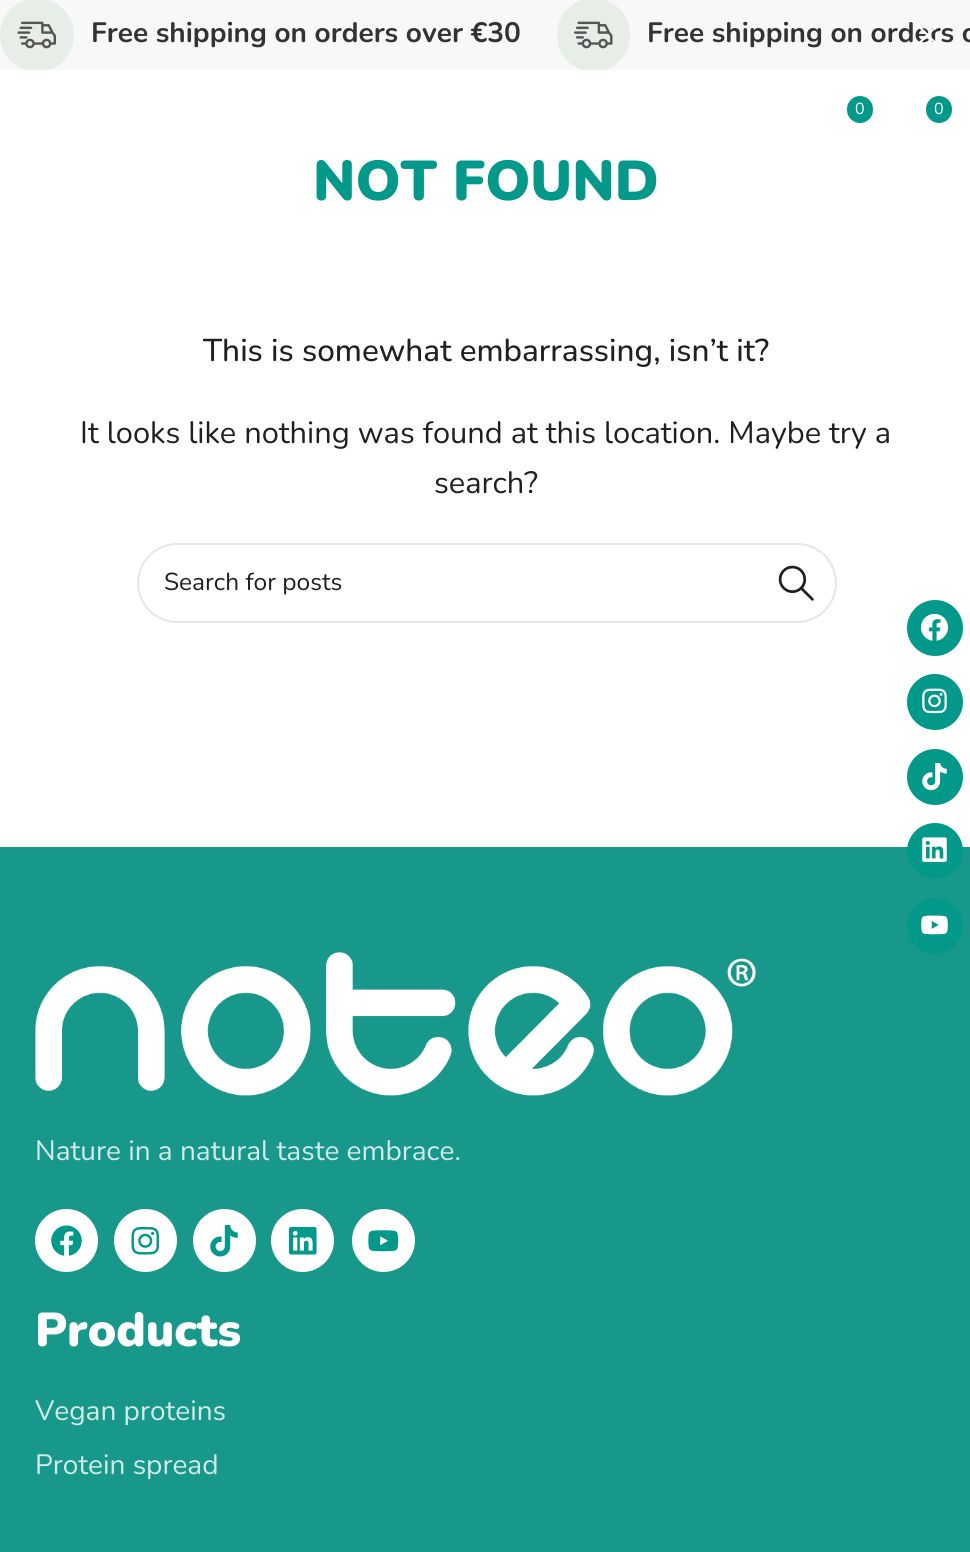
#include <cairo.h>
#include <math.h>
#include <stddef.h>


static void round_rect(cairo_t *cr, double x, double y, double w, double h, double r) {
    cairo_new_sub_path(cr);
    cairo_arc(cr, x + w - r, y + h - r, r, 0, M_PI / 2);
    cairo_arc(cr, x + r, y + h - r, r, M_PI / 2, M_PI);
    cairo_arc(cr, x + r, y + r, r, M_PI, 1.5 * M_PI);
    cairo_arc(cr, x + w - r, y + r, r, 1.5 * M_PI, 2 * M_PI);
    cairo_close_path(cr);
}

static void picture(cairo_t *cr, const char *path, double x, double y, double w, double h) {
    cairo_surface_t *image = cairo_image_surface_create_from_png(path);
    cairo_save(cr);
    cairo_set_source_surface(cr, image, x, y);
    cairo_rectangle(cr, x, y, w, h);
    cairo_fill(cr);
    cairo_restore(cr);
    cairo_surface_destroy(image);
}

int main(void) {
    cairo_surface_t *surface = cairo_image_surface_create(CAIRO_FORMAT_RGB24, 970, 1552);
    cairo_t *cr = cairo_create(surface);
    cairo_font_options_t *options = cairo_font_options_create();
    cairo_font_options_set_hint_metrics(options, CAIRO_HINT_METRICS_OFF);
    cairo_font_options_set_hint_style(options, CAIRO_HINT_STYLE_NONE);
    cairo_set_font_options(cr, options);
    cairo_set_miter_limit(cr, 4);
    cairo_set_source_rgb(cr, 1, 1, 1);
    cairo_paint(cr);
    cairo_set_source_rgb(cr, 0.969, 0.969, 0.969);
    cairo_rectangle(cr, 0, 0, 970, 70);
    cairo_fill(cr);
    picture(cr, "img1.png", 0, 0, 74, 70);
    cairo_select_font_face(cr, "Nunito", CAIRO_FONT_SLANT_NORMAL, CAIRO_FONT_WEIGHT_BOLD);
    cairo_set_font_size(cr, 28);
    cairo_set_source_rgb(cr, 0.2, 0.2, 0.2);
    cairo_move_to(cr, 91, 42);
    cairo_show_text(cr, "Free shipping on orders over €30");
    picture(cr, "img2.png", 557, 0, 73, 70);
    cairo_move_to(cr, 647, 42);
    cairo_show_text(cr, "Free shipping on orders o");
    picture(cr, "img3.png", 916, 24, 23, 22);
    cairo_set_source_rgb(cr, 0.012, 0.6, 0.541);
    round_rect(cr, 847, 96, 26, 27, 13);
    cairo_fill(cr);
    cairo_select_font_face(cr, "Nunito", CAIRO_FONT_SLANT_NORMAL, CAIRO_FONT_WEIGHT_NORMAL);
    cairo_set_font_size(cr, 16);
    cairo_set_source_rgb(cr, 1, 1, 1);
    cairo_move_to(cr, 855, 114);
    cairo_show_text(cr, "0");
    cairo_set_source_rgb(cr, 0.012, 0.6, 0.541);
    round_rect(cr, 926, 96, 26, 27, 13);
    cairo_fill(cr);
    cairo_set_source_rgb(cr, 1, 1, 1);
    cairo_move_to(cr, 934, 114);
    cairo_show_text(cr, "0");
    cairo_select_font_face(cr, "Nunito Black", CAIRO_FONT_SLANT_NORMAL, CAIRO_FONT_WEIGHT_NORMAL);
    cairo_set_font_size(cr, 56);
    cairo_set_source_rgb(cr, 0.012, 0.6, 0.541);
    cairo_move_to(cr, 313, 200);
    cairo_show_text(cr, "NOT FOUND");
    cairo_select_font_face(cr, "Nunito Medium", CAIRO_FONT_SLANT_NORMAL, CAIRO_FONT_WEIGHT_NORMAL);
    cairo_set_font_size(cr, 31.5);
    cairo_set_source_rgb(cr, 0.137, 0.122, 0.125);
    cairo_move_to(cr, 203, 361);
    cairo_show_text(cr, "This is somewhat embarrassing, isn’t it?");
    cairo_select_font_face(cr, "Nunito", CAIRO_FONT_SLANT_NORMAL, CAIRO_FONT_WEIGHT_NORMAL);
    cairo_set_font_size(cr, 30.8);
    cairo_move_to(cr, 80, 443);
    cairo_show_text(cr, "It looks like nothing was found at this location. Maybe try a");
    cairo_move_to(cr, 434, 493);
    cairo_show_text(cr, "search?");
    round_rect(cr, 138, 544, 698, 78, 39);
    cairo_set_source_rgb(cr, 0.902, 0.902, 0.902);
    cairo_stroke(cr);
    cairo_set_font_size(cr, 24.5);
    cairo_set_source_rgb(cr, 0.137, 0.122, 0.125);
    cairo_move_to(cr, 164, 590);
    cairo_show_text(cr, "Search for posts");
    picture(cr, "img4.png", 778, 565, 36, 36);
    cairo_set_source_rgb(cr, 0.012, 0.6, 0.541);
    cairo_arc(cr, 935, 628, 28, 0, 2 * M_PI);
    cairo_fill(cr);
    picture(cr, "img5.png", 921, 614, 28, 27);
    cairo_arc(cr, 935, 702, 28, 0, 2 * M_PI);
    cairo_fill(cr);
    picture(cr, "img6.png", 922, 688, 25, 26);
    cairo_arc(cr, 935, 777, 28, 0, 2 * M_PI);
    cairo_fill(cr);
    picture(cr, "img7.png", 922, 763, 25, 28);
    cairo_set_source_rgb(cr, 0.094, 0.596, 0.545);
    cairo_rectangle(cr, 0, 847, 970, 705);
    cairo_fill(cr);
    cairo_set_source_rgb(cr, 0.012, 0.6, 0.541);
    cairo_arc(cr, 935, 851, 28, 0, 2 * M_PI);
    cairo_fill(cr);
    picture(cr, "img8.png", 922, 837, 25, 25);
    cairo_arc(cr, 935, 926, 28, 0, 2 * M_PI);
    cairo_fill(cr);
    picture(cr, "img9.png", 921, 915, 27, 20);
    picture(cr, "img10.png", 35, 952, 721, 144);
    cairo_set_font_size(cr, 28);
    cairo_set_source_rgb(cr, 0.82, 0.918, 0.91);
    cairo_move_to(cr, 35, 1160);
    cairo_show_text(cr, "Nature in a natural taste embrace.");
    cairo_set_source_rgb(cr, 1, 1, 1);
    cairo_new_path(cr);
    cairo_arc(cr, 66.5, 1240.5, 31.5, 0, 2 * M_PI);
    cairo_fill(cr);
    picture(cr, "img11.png", 51, 1225, 31, 31);
    cairo_arc(cr, 145.5, 1240.5, 31.5, 0, 2 * M_PI);
    cairo_fill(cr);
    picture(cr, "img12.png", 131, 1226, 29, 29);
    cairo_arc(cr, 224.5, 1240.5, 31.5, 0, 2 * M_PI);
    cairo_fill(cr);
    picture(cr, "img13.png", 210, 1225, 28, 32);
    cairo_arc(cr, 302.5, 1240.5, 31.5, 0, 2 * M_PI);
    cairo_fill(cr);
    picture(cr, "img14.png", 288, 1227, 29, 28);
    cairo_arc(cr, 383.5, 1240.5, 31.5, 0, 2 * M_PI);
    cairo_fill(cr);
    picture(cr, "img15.png", 368, 1230, 31, 22);
    cairo_select_font_face(cr, "Nunito Black", CAIRO_FONT_SLANT_NORMAL, CAIRO_FONT_WEIGHT_NORMAL);
    cairo_set_font_size(cr, 47.5);
    cairo_move_to(cr, 35, 1346);
    cairo_show_text(cr, "Products");
    cairo_select_font_face(cr, "Nunito", CAIRO_FONT_SLANT_NORMAL, CAIRO_FONT_WEIGHT_NORMAL);
    cairo_set_font_size(cr, 28);
    cairo_set_source_rgb(cr, 0.82, 0.918, 0.91);
    cairo_move_to(cr, 35, 1420);
    cairo_show_text(cr, "Vegan proteins");
    cairo_move_to(cr, 35, 1474);
    cairo_show_text(cr, "Protein spread");
    cairo_surface_write_to_png(surface, "page.png");
    cairo_font_options_destroy(options);
    cairo_destroy(cr);
    cairo_surface_destroy(surface);
    return 0;
}
